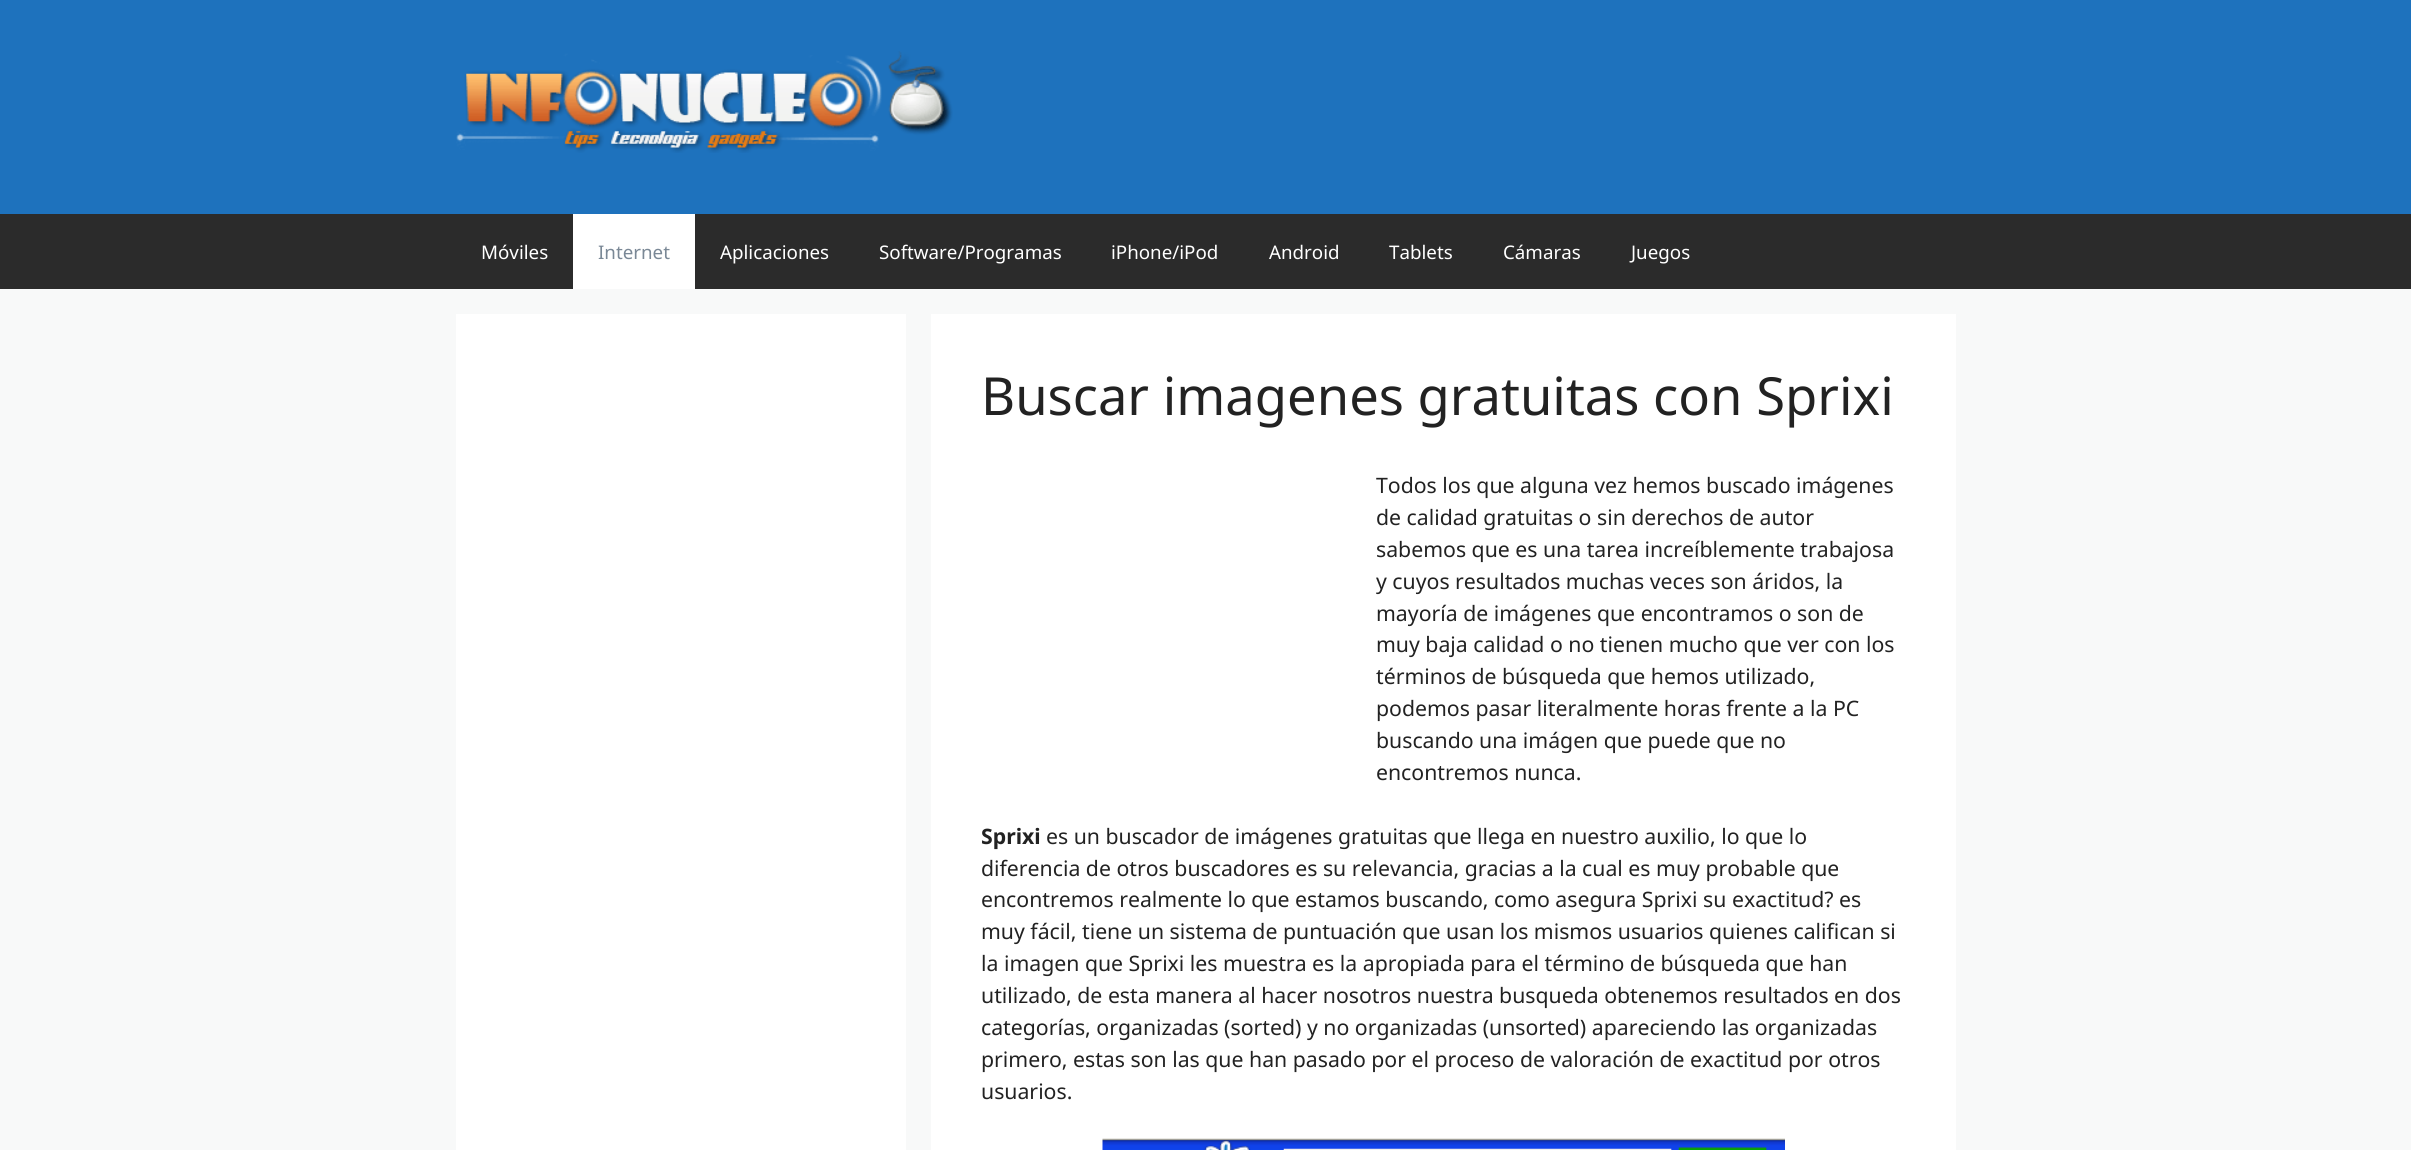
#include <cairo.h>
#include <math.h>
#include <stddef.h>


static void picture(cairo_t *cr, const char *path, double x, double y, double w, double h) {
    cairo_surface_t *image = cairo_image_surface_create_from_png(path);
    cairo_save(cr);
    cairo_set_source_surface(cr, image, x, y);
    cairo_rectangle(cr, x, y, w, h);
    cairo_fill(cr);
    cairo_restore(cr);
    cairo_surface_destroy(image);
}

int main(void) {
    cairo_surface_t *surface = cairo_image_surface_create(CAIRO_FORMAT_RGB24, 2411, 1150);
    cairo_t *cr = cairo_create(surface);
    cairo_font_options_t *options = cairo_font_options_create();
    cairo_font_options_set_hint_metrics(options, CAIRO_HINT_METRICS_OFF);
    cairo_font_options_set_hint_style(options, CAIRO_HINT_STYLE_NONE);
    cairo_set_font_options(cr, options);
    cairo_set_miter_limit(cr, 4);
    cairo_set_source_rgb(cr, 0.969, 0.973, 0.976);
    cairo_paint(cr);
    cairo_set_source_rgb(cr, 0.118, 0.447, 0.741);
    cairo_rectangle(cr, 0, 0, 2411, 214);
    cairo_fill(cr);
    picture(cr, "img1.png", 456, 51, 497, 102);
    cairo_set_source_rgb(cr, 0.169, 0.169, 0.169);
    cairo_rectangle(cr, 0, 214, 2411, 75);
    cairo_fill(cr);
    cairo_select_font_face(cr, "Noto Sans", CAIRO_FONT_SLANT_NORMAL, CAIRO_FONT_WEIGHT_NORMAL);
    cairo_set_font_size(cr, 18.75);
    cairo_set_source_rgb(cr, 1, 1, 1);
    cairo_move_to(cr, 481, 259);
    cairo_show_text(cr, "Móviles");
    cairo_rectangle(cr, 573, 214, 122, 75);
    cairo_fill(cr);
    cairo_set_source_rgb(cr, 0.478, 0.533, 0.588);
    cairo_move_to(cr, 598, 259);
    cairo_show_text(cr, "Internet");
    cairo_set_source_rgb(cr, 1, 1, 1);
    cairo_move_to(cr, 720, 259);
    cairo_show_text(cr, "Aplicaciones");
    cairo_move_to(cr, 879, 259);
    cairo_show_text(cr, "Software/Programas");
    cairo_move_to(cr, 1111, 259);
    cairo_show_text(cr, "iPhone/iPod");
    cairo_move_to(cr, 1269, 259);
    cairo_show_text(cr, "Android");
    cairo_move_to(cr, 1389, 259);
    cairo_show_text(cr, "Tablets");
    cairo_move_to(cr, 1503, 259);
    cairo_show_text(cr, "Cámaras");
    cairo_move_to(cr, 1631, 259);
    cairo_show_text(cr, "Juegos");
    cairo_rectangle(cr, 456, 314, 450, 836);
    cairo_fill(cr);
    cairo_rectangle(cr, 931, 314, 1025, 836);
    cairo_fill(cr);
    cairo_set_font_size(cr, 52.5);
    cairo_set_source_rgb(cr, 0.133, 0.133, 0.133);
    cairo_move_to(cr, 981, 415);
    cairo_show_text(cr, "Buscar imagenes gratuitas con Sprixi");
    cairo_set_font_size(cr, 21.25);
    cairo_move_to(cr, 1376, 493);
    cairo_show_text(cr, "Todos los que alguna vez hemos buscado imágenes");
    cairo_move_to(cr, 1376, 525);
    cairo_show_text(cr, "de calidad gratuitas o sin derechos de autor");
    cairo_move_to(cr, 1376, 557);
    cairo_show_text(cr, "sabemos que es una tarea increíblemente trabajosa");
    cairo_move_to(cr, 1376, 589);
    cairo_show_text(cr, "y cuyos resultados muchas veces son áridos, la");
    cairo_move_to(cr, 1376, 621);
    cairo_show_text(cr, "mayoría de imágenes que encontramos o son de");
    cairo_move_to(cr, 1376, 652);
    cairo_show_text(cr, "muy baja calidad o no tienen mucho que ver con los");
    cairo_move_to(cr, 1376, 684);
    cairo_show_text(cr, "términos de búsqueda que hemos utilizado,");
    cairo_move_to(cr, 1376, 716);
    cairo_show_text(cr, "podemos pasar literalmente horas frente a la PC");
    cairo_move_to(cr, 1376, 748);
    cairo_show_text(cr, "buscando una imágen que puede que no");
    cairo_move_to(cr, 1376, 780);
    cairo_show_text(cr, "encontremos nunca.");
    cairo_select_font_face(cr, "Noto Sans", CAIRO_FONT_SLANT_NORMAL, CAIRO_FONT_WEIGHT_BOLD);
    cairo_move_to(cr, 981, 844);
    cairo_show_text(cr, "Sprixi");
    cairo_select_font_face(cr, "Noto Sans", CAIRO_FONT_SLANT_NORMAL, CAIRO_FONT_WEIGHT_NORMAL);
    cairo_move_to(cr, 1046, 844);
    cairo_show_text(cr, "es un buscador de imágenes gratuitas que llega en nuestro auxilio, lo que lo");
    cairo_move_to(cr, 981, 876);
    cairo_show_text(cr, "diferencia de otros buscadores es su relevancia, gracias a la cual es muy probable que");
    cairo_move_to(cr, 981, 907);
    cairo_show_text(cr, "encontremos realmente lo que estamos buscando, como asegura Sprixi su exactitud? es");
    cairo_move_to(cr, 981, 939);
    cairo_show_text(cr, "muy fácil, tiene un sistema de puntuación que usan los mismos usuarios quienes califican si");
    cairo_move_to(cr, 981, 971);
    cairo_show_text(cr, "la imagen que Sprixi les muestra es la apropiada para el término de búsqueda que han");
    cairo_move_to(cr, 981, 1003);
    cairo_show_text(cr, "utilizado, de esta manera al hacer nosotros nuestra busqueda obtenemos resultados en dos");
    cairo_move_to(cr, 981, 1035);
    cairo_show_text(cr, "categorías, organizadas (sorted) y no organizadas (unsorted) apareciendo las organizadas");
    cairo_move_to(cr, 981, 1067);
    cairo_show_text(cr, "primero, estas son las que han pasado por el proceso de valoración de exactitud por otros");
    cairo_move_to(cr, 981, 1099);
    cairo_show_text(cr, "usuarios.");
    picture(cr, "img2.png", 1102, 1138, 683, 12);
    cairo_surface_write_to_png(surface, "page.png");
    cairo_font_options_destroy(options);
    cairo_destroy(cr);
    cairo_surface_destroy(surface);
    return 0;
}
